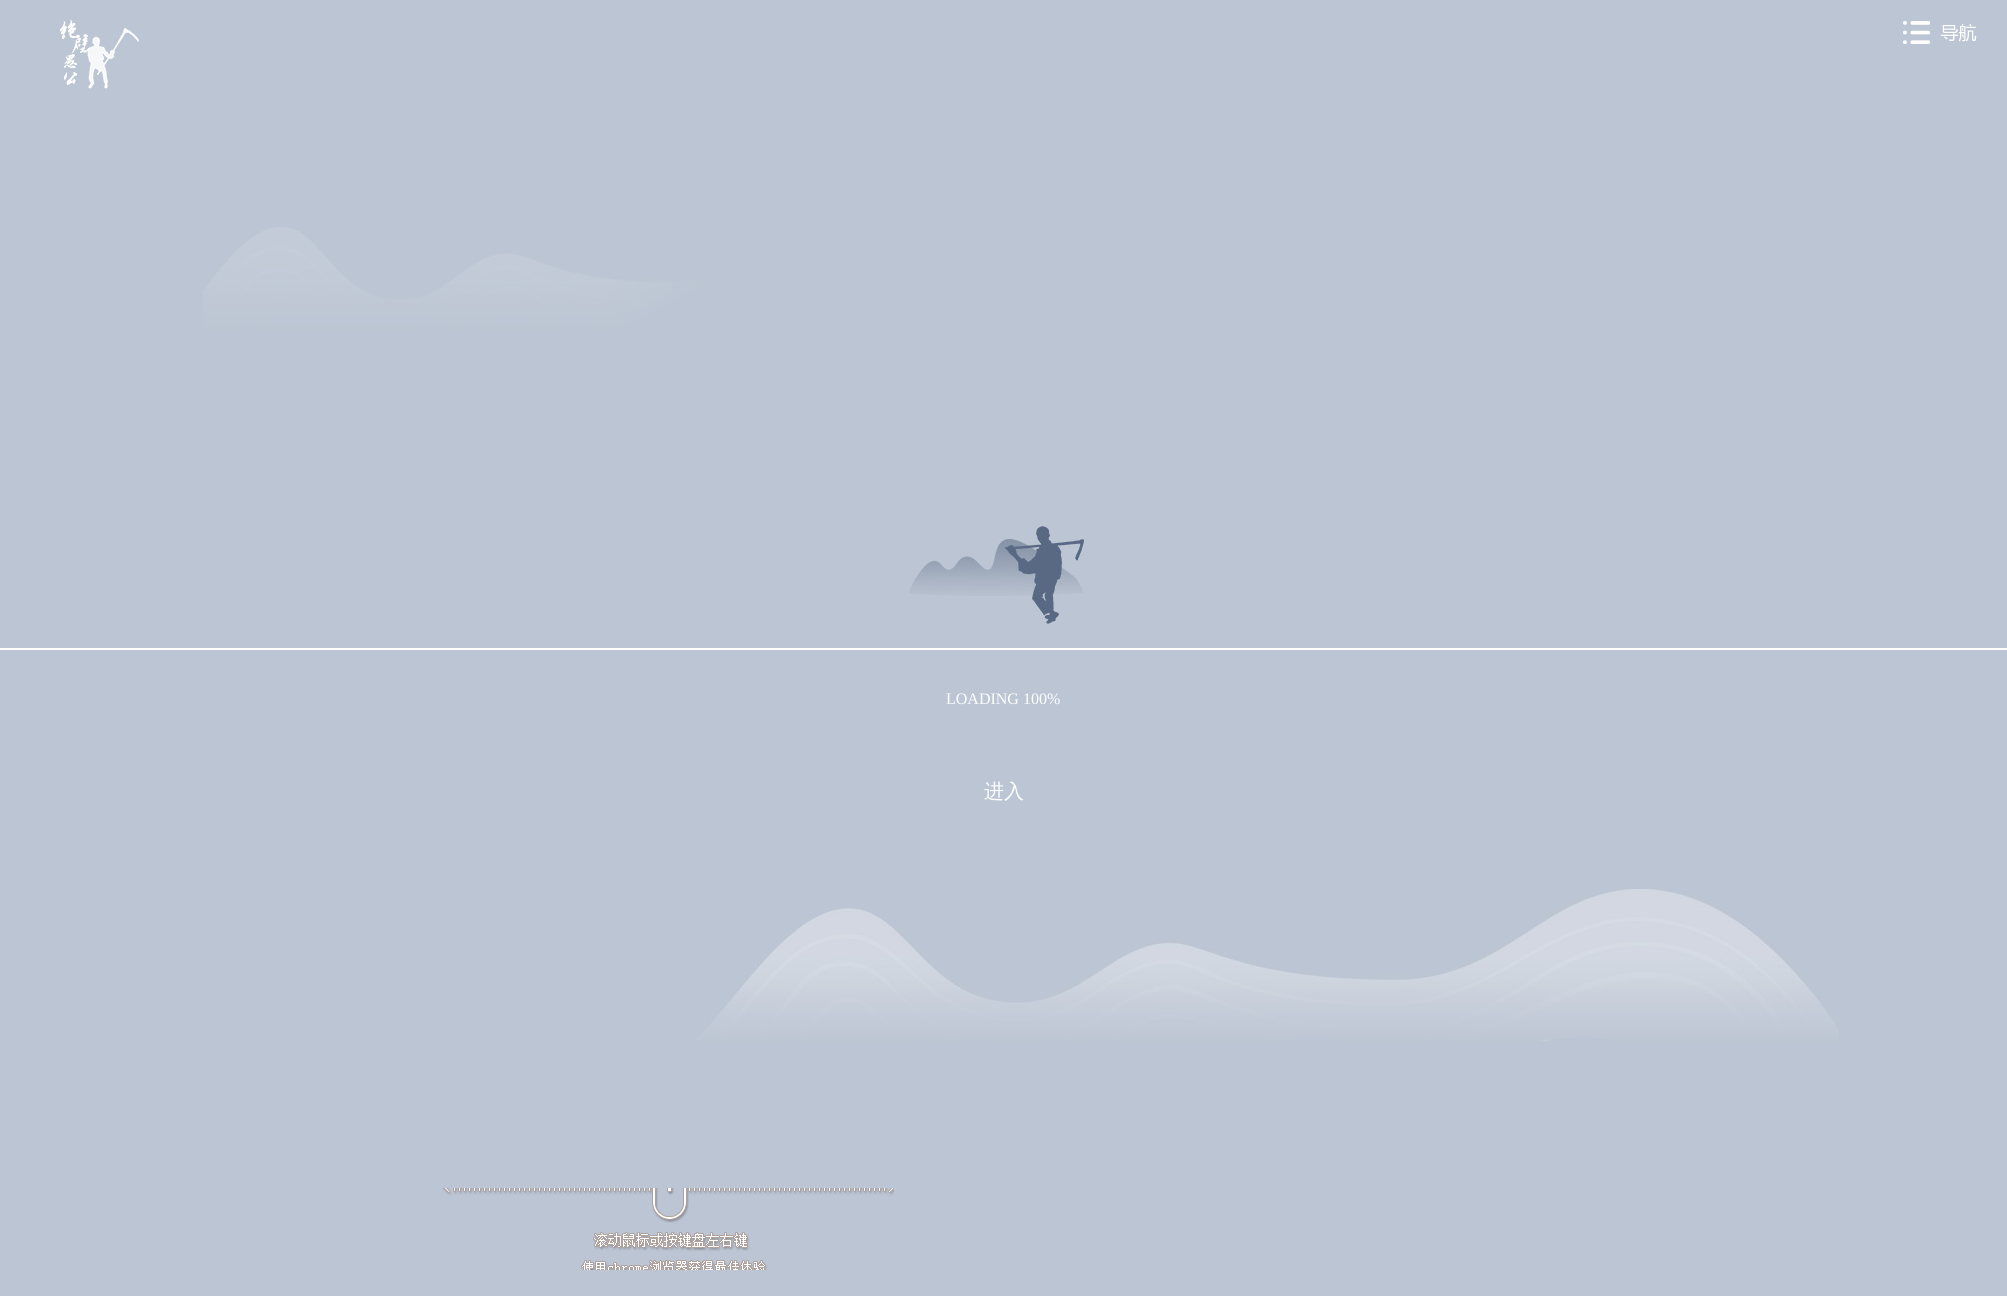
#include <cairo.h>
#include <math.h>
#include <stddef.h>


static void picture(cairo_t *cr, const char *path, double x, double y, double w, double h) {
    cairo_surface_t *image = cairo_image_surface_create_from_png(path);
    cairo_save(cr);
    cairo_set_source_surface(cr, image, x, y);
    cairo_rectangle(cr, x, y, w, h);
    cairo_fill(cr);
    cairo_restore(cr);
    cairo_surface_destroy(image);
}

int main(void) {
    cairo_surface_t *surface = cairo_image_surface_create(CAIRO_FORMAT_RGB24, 2007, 1296);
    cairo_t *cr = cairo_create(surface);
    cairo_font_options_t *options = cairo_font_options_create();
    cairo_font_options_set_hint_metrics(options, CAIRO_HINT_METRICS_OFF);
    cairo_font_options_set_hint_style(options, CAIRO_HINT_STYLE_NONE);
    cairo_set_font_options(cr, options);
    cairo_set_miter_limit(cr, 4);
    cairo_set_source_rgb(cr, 0.737, 0.773, 0.827);
    cairo_paint(cr);
    picture(cr, "img1.png", 60, 20, 79, 69);
    picture(cr, "img2.png", 1903, 21, 74, 23);
    picture(cr, "img3.png", 203, 227, 1636, 961);
    cairo_set_source_rgb(cr, 1, 1, 1);
    cairo_rectangle(cr, 0, 648, 2007, 2);
    cairo_fill(cr);
    cairo_select_font_face(cr, "Liberation Serif", CAIRO_FONT_SLANT_NORMAL, CAIRO_FONT_WEIGHT_NORMAL);
    cairo_set_font_size(cr, 16);
    cairo_move_to(cr, 946, 704);
    cairo_show_text(cr, "LOADING 100%");
    cairo_select_font_face(cr, "WenQuanYi Zen Hei Medium", CAIRO_FONT_SLANT_NORMAL, CAIRO_FONT_WEIGHT_NORMAL);
    cairo_set_font_size(cr, 20);
    cairo_move_to(cr, 984, 798);
    cairo_show_text(cr, "进入");
    picture(cr, "img4.png", 442, 1188, 452, 82);
    cairo_surface_write_to_png(surface, "page.png");
    cairo_font_options_destroy(options);
    cairo_destroy(cr);
    cairo_surface_destroy(surface);
    return 0;
}
